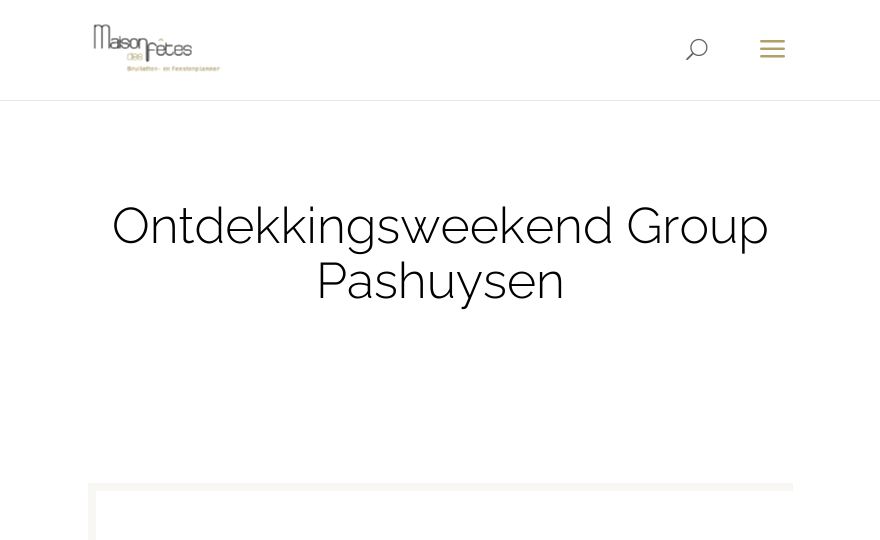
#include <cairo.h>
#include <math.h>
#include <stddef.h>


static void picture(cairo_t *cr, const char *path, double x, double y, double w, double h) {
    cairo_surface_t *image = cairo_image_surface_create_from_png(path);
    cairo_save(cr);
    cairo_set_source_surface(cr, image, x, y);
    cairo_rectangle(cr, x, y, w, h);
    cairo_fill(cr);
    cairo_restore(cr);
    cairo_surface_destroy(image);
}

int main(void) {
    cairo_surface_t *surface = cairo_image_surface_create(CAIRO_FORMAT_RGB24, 880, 540);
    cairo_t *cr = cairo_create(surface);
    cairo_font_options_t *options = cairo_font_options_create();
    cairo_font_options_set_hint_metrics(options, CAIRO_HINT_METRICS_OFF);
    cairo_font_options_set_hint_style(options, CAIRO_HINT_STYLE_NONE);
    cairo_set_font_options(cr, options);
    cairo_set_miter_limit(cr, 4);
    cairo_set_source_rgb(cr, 1, 1, 1);
    cairo_paint(cr);
    cairo_set_source_rgb(cr, 0.902, 0.902, 0.902);
    cairo_rectangle(cr, 0, 100, 880, 1);
    cairo_fill(cr);
    picture(cr, "img1.png", 93, 24, 128, 49);
    picture(cr, "img2.png", 686, 38, 22, 23);
    picture(cr, "img3.png", 760, 40, 25, 18);
    cairo_select_font_face(cr, "Raleway Light", CAIRO_FONT_SLANT_NORMAL, CAIRO_FONT_WEIGHT_NORMAL);
    cairo_set_font_size(cr, 50);
    cairo_set_source_rgb(cr, 0, 0, 0);
    cairo_move_to(cr, 112, 243);
    cairo_show_text(cr, "Ontdekkingsweekend Group");
    cairo_move_to(cr, 316, 298);
    cairo_show_text(cr, "Pashuysen");
    cairo_set_source_rgb(cr, 0.969, 0.965, 0.957);
    cairo_rectangle(cr, 88, 483, 705, 8);
    cairo_fill(cr);
    cairo_rectangle(cr, 88, 483, 8, 57);
    cairo_fill(cr);
    cairo_surface_write_to_png(surface, "page.png");
    cairo_font_options_destroy(options);
    cairo_destroy(cr);
    cairo_surface_destroy(surface);
    return 0;
}
